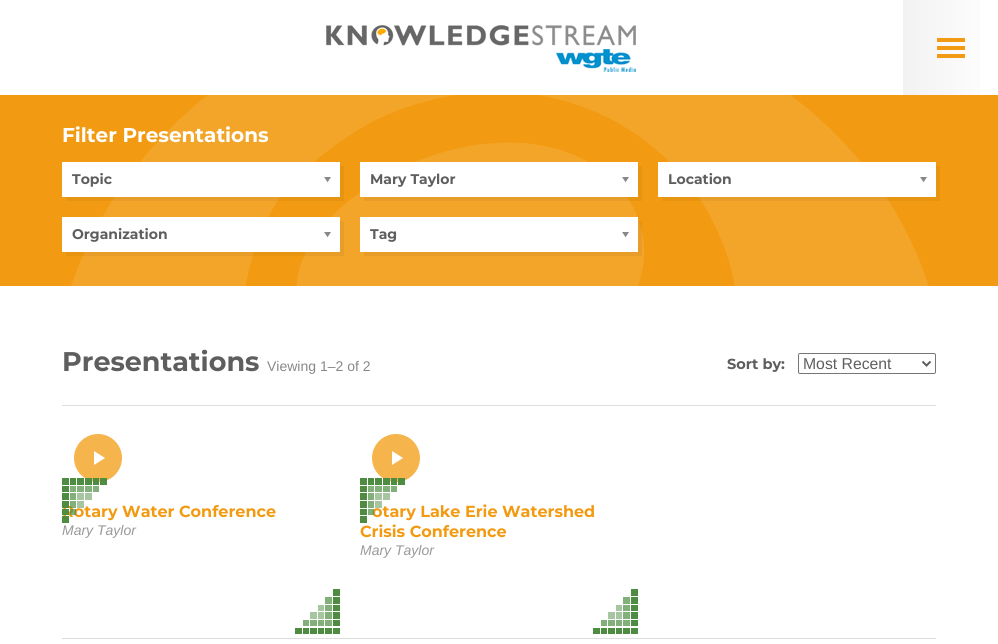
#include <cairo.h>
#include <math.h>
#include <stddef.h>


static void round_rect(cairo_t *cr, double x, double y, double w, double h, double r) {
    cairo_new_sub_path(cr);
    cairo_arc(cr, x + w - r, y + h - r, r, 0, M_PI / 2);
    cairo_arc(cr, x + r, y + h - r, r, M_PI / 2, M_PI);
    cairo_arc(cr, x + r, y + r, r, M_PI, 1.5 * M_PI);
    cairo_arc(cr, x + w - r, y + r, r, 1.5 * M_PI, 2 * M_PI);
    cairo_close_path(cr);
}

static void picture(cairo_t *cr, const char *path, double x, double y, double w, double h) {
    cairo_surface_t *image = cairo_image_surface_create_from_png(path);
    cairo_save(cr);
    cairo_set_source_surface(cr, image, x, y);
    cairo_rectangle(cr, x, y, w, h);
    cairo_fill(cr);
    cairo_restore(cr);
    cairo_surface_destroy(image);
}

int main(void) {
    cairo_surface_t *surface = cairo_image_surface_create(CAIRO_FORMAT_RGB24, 998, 644);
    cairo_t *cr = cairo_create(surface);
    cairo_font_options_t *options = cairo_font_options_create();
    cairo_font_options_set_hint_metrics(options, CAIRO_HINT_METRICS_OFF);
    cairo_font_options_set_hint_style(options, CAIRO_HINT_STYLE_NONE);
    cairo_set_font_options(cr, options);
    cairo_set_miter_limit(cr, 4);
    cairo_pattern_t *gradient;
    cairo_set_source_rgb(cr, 1, 1, 1);
    cairo_paint(cr);
    picture(cr, "img1.png", 326, 25, 310, 47);
    gradient = cairo_pattern_create_linear(903, 48, 998, 48);
    cairo_pattern_add_color_stop_rgba(gradient, 0, 0.949, 0.949, 0.949, 1);
    cairo_pattern_add_color_stop_rgba(gradient, 1, 1, 1, 1, 1);
    cairo_set_source(cr, gradient);
    cairo_pattern_destroy(gradient);
    cairo_rectangle(cr, 903, 0, 77, 95);
    cairo_fill(cr);
    cairo_set_source_rgb(cr, 0.949, 0.608, 0.071);
    cairo_rectangle(cr, 937, 46, 28, 4);
    cairo_fill(cr);
    cairo_rectangle(cr, 937, 38, 28, 4);
    cairo_fill(cr);
    cairo_rectangle(cr, 937, 54, 28, 4);
    cairo_fill(cr);
    cairo_rectangle(cr, 0, 95, 998, 191);
    cairo_fill(cr);
    picture(cr, "img2.png", 71, 95, 858, 191);
    cairo_select_font_face(cr, "Montserrat", CAIRO_FONT_SLANT_NORMAL, CAIRO_FONT_WEIGHT_BOLD);
    cairo_set_font_size(cr, 20);
    cairo_set_source_rgb(cr, 1, 1, 1);
    cairo_move_to(cr, 62, 142);
    cairo_show_text(cr, "Filter Presentations");
    cairo_set_source_rgba(cr, 0, 0, 0, 0.05);
    cairo_new_path(cr);
    cairo_move_to(cr, 66, 197);
    cairo_line_to(cr, 66, 201);
    cairo_line_to(cr, 344, 201);
    cairo_line_to(cr, 344, 166);
    cairo_line_to(cr, 340, 166);
    cairo_line_to(cr, 340, 197);
    cairo_close_path(cr);
    cairo_fill(cr);
    cairo_set_source_rgb(cr, 1, 1, 1);
    cairo_rectangle(cr, 62, 162, 278, 35);
    cairo_fill(cr);
    cairo_set_font_size(cr, 14);
    cairo_set_source_rgb(cr, 0.369, 0.369, 0.369);
    cairo_move_to(cr, 72, 184);
    cairo_show_text(cr, "Topic");
    picture(cr, "img3.png", 324, 177, 7, 6);
    cairo_set_source_rgba(cr, 0, 0, 0, 0.05);
    cairo_new_path(cr);
    cairo_move_to(cr, 364, 197);
    cairo_line_to(cr, 364, 201);
    cairo_line_to(cr, 642, 201);
    cairo_line_to(cr, 642, 166);
    cairo_line_to(cr, 638, 166);
    cairo_line_to(cr, 638, 197);
    cairo_close_path(cr);
    cairo_fill(cr);
    cairo_set_source_rgb(cr, 1, 1, 1);
    cairo_rectangle(cr, 360, 162, 278, 35);
    cairo_fill(cr);
    cairo_set_source_rgb(cr, 0.369, 0.369, 0.369);
    cairo_move_to(cr, 370, 184);
    cairo_show_text(cr, "Mary Taylor");
    picture(cr, "img3.png", 622, 177, 7, 6);
    cairo_set_source_rgba(cr, 0, 0, 0, 0.05);
    cairo_new_path(cr);
    cairo_move_to(cr, 662, 197);
    cairo_line_to(cr, 662, 201);
    cairo_line_to(cr, 940, 201);
    cairo_line_to(cr, 940, 166);
    cairo_line_to(cr, 936, 166);
    cairo_line_to(cr, 936, 197);
    cairo_close_path(cr);
    cairo_fill(cr);
    cairo_set_source_rgb(cr, 1, 1, 1);
    cairo_rectangle(cr, 658, 162, 278, 35);
    cairo_fill(cr);
    cairo_set_source_rgb(cr, 0.369, 0.369, 0.369);
    cairo_move_to(cr, 668, 184);
    cairo_show_text(cr, "Location");
    picture(cr, "img3.png", 920, 177, 7, 6);
    cairo_set_source_rgba(cr, 0, 0, 0, 0.05);
    cairo_new_path(cr);
    cairo_move_to(cr, 66, 252);
    cairo_line_to(cr, 66, 256);
    cairo_line_to(cr, 344, 256);
    cairo_line_to(cr, 344, 221);
    cairo_line_to(cr, 340, 221);
    cairo_line_to(cr, 340, 252);
    cairo_close_path(cr);
    cairo_fill(cr);
    cairo_set_source_rgb(cr, 1, 1, 1);
    cairo_rectangle(cr, 62, 217, 278, 35);
    cairo_fill(cr);
    cairo_set_source_rgb(cr, 0.369, 0.369, 0.369);
    cairo_move_to(cr, 72, 239);
    cairo_show_text(cr, "Organization");
    picture(cr, "img3.png", 324, 232, 7, 6);
    cairo_set_source_rgba(cr, 0, 0, 0, 0.05);
    cairo_new_path(cr);
    cairo_move_to(cr, 364, 252);
    cairo_line_to(cr, 364, 256);
    cairo_line_to(cr, 642, 256);
    cairo_line_to(cr, 642, 221);
    cairo_line_to(cr, 638, 221);
    cairo_line_to(cr, 638, 252);
    cairo_close_path(cr);
    cairo_fill(cr);
    cairo_set_source_rgb(cr, 1, 1, 1);
    cairo_rectangle(cr, 360, 217, 278, 35);
    cairo_fill(cr);
    cairo_set_source_rgb(cr, 0.369, 0.369, 0.369);
    cairo_move_to(cr, 370, 239);
    cairo_show_text(cr, "Tag");
    picture(cr, "img3.png", 622, 232, 7, 6);
    cairo_set_font_size(cr, 27);
    cairo_move_to(cr, 62, 371);
    cairo_show_text(cr, "Presentations");
    cairo_select_font_face(cr, "Liberation Sans", CAIRO_FONT_SLANT_NORMAL, CAIRO_FONT_WEIGHT_NORMAL);
    cairo_set_font_size(cr, 14);
    cairo_set_source_rgb(cr, 0.533, 0.533, 0.533);
    cairo_move_to(cr, 267, 371);
    cairo_show_text(cr, "Viewing 1–2 of 2");
    cairo_select_font_face(cr, "Montserrat", CAIRO_FONT_SLANT_NORMAL, CAIRO_FONT_WEIGHT_BOLD);
    cairo_set_font_size(cr, 14.5);
    cairo_set_source_rgb(cr, 0.369, 0.369, 0.369);
    cairo_move_to(cr, 727, 369);
    cairo_show_text(cr, "Sort by:");
    round_rect(cr, 798.5, 353.5, 137, 20, 1.5);
    cairo_set_source_rgb(cr, 0.463, 0.463, 0.463);
    cairo_set_line_width(cr, 1);
    cairo_stroke(cr);
    cairo_new_path(cr);
    cairo_move_to(cr, 922.5, 361.5);
    cairo_line_to(cr, 926.5, 365.5);
    cairo_line_to(cr, 930.5, 361.5);
    cairo_set_source_rgb(cr, 0.369, 0.369, 0.369);
    cairo_set_line_width(cr, 2);
    cairo_stroke(cr);
    cairo_select_font_face(cr, "Liberation Sans", CAIRO_FONT_SLANT_NORMAL, CAIRO_FONT_WEIGHT_NORMAL);
    cairo_set_font_size(cr, 15.75);
    cairo_move_to(cr, 803, 369);
    cairo_show_text(cr, "Most Recent");
    cairo_set_source_rgb(cr, 0.867, 0.867, 0.867);
    cairo_rectangle(cr, 62, 405, 874, 1);
    cairo_fill(cr);
    cairo_set_source_rgb(cr, 0.961, 0.706, 0.302);
    cairo_arc(cr, 98, 458, 24, 0, 2 * M_PI);
    cairo_fill(cr);
    cairo_set_source_rgb(cr, 1, 1, 1);
    cairo_new_path(cr);
    cairo_move_to(cr, 94, 451);
    cairo_line_to(cr, 94, 465);
    cairo_line_to(cr, 105, 458);
    cairo_close_path(cr);
    cairo_fill(cr);
    cairo_select_font_face(cr, "Montserrat", CAIRO_FONT_SLANT_NORMAL, CAIRO_FONT_WEIGHT_BOLD);
    cairo_set_font_size(cr, 16);
    cairo_set_source_rgb(cr, 0.949, 0.608, 0.071);
    cairo_move_to(cr, 62, 517);
    cairo_show_text(cr, "Rotary Water Conference");
    cairo_select_font_face(cr, "Liberation Sans", CAIRO_FONT_SLANT_ITALIC, CAIRO_FONT_WEIGHT_NORMAL);
    cairo_set_font_size(cr, 14);
    cairo_set_source_rgb(cr, 0.6, 0.6, 0.6);
    cairo_move_to(cr, 62, 535);
    cairo_show_text(cr, "Mary Taylor");
    picture(cr, "img4.png", 62, 478, 278, 156);
    cairo_set_source_rgb(cr, 0.961, 0.706, 0.302);
    cairo_arc(cr, 396, 458, 24, 0, 2 * M_PI);
    cairo_fill(cr);
    cairo_set_source_rgb(cr, 1, 1, 1);
    cairo_new_path(cr);
    cairo_move_to(cr, 392, 451);
    cairo_line_to(cr, 392, 465);
    cairo_line_to(cr, 403, 458);
    cairo_close_path(cr);
    cairo_fill(cr);
    cairo_select_font_face(cr, "Montserrat", CAIRO_FONT_SLANT_NORMAL, CAIRO_FONT_WEIGHT_BOLD);
    cairo_set_font_size(cr, 16);
    cairo_set_source_rgb(cr, 0.949, 0.608, 0.071);
    cairo_move_to(cr, 372, 517);
    cairo_show_text(cr, "otary Lake Erie Watershed");
    cairo_move_to(cr, 360, 537);
    cairo_show_text(cr, "Crisis Conference");
    cairo_select_font_face(cr, "Liberation Sans", CAIRO_FONT_SLANT_ITALIC, CAIRO_FONT_WEIGHT_NORMAL);
    cairo_set_font_size(cr, 14);
    cairo_set_source_rgb(cr, 0.6, 0.6, 0.6);
    cairo_move_to(cr, 360, 555);
    cairo_show_text(cr, "Mary Taylor");
    picture(cr, "img5.png", 360, 478, 278, 156);
    cairo_set_source_rgb(cr, 0.867, 0.867, 0.867);
    cairo_rectangle(cr, 62, 638, 874, 1);
    cairo_fill(cr);
    cairo_surface_write_to_png(surface, "page.png");
    cairo_font_options_destroy(options);
    cairo_destroy(cr);
    cairo_surface_destroy(surface);
    return 0;
}
